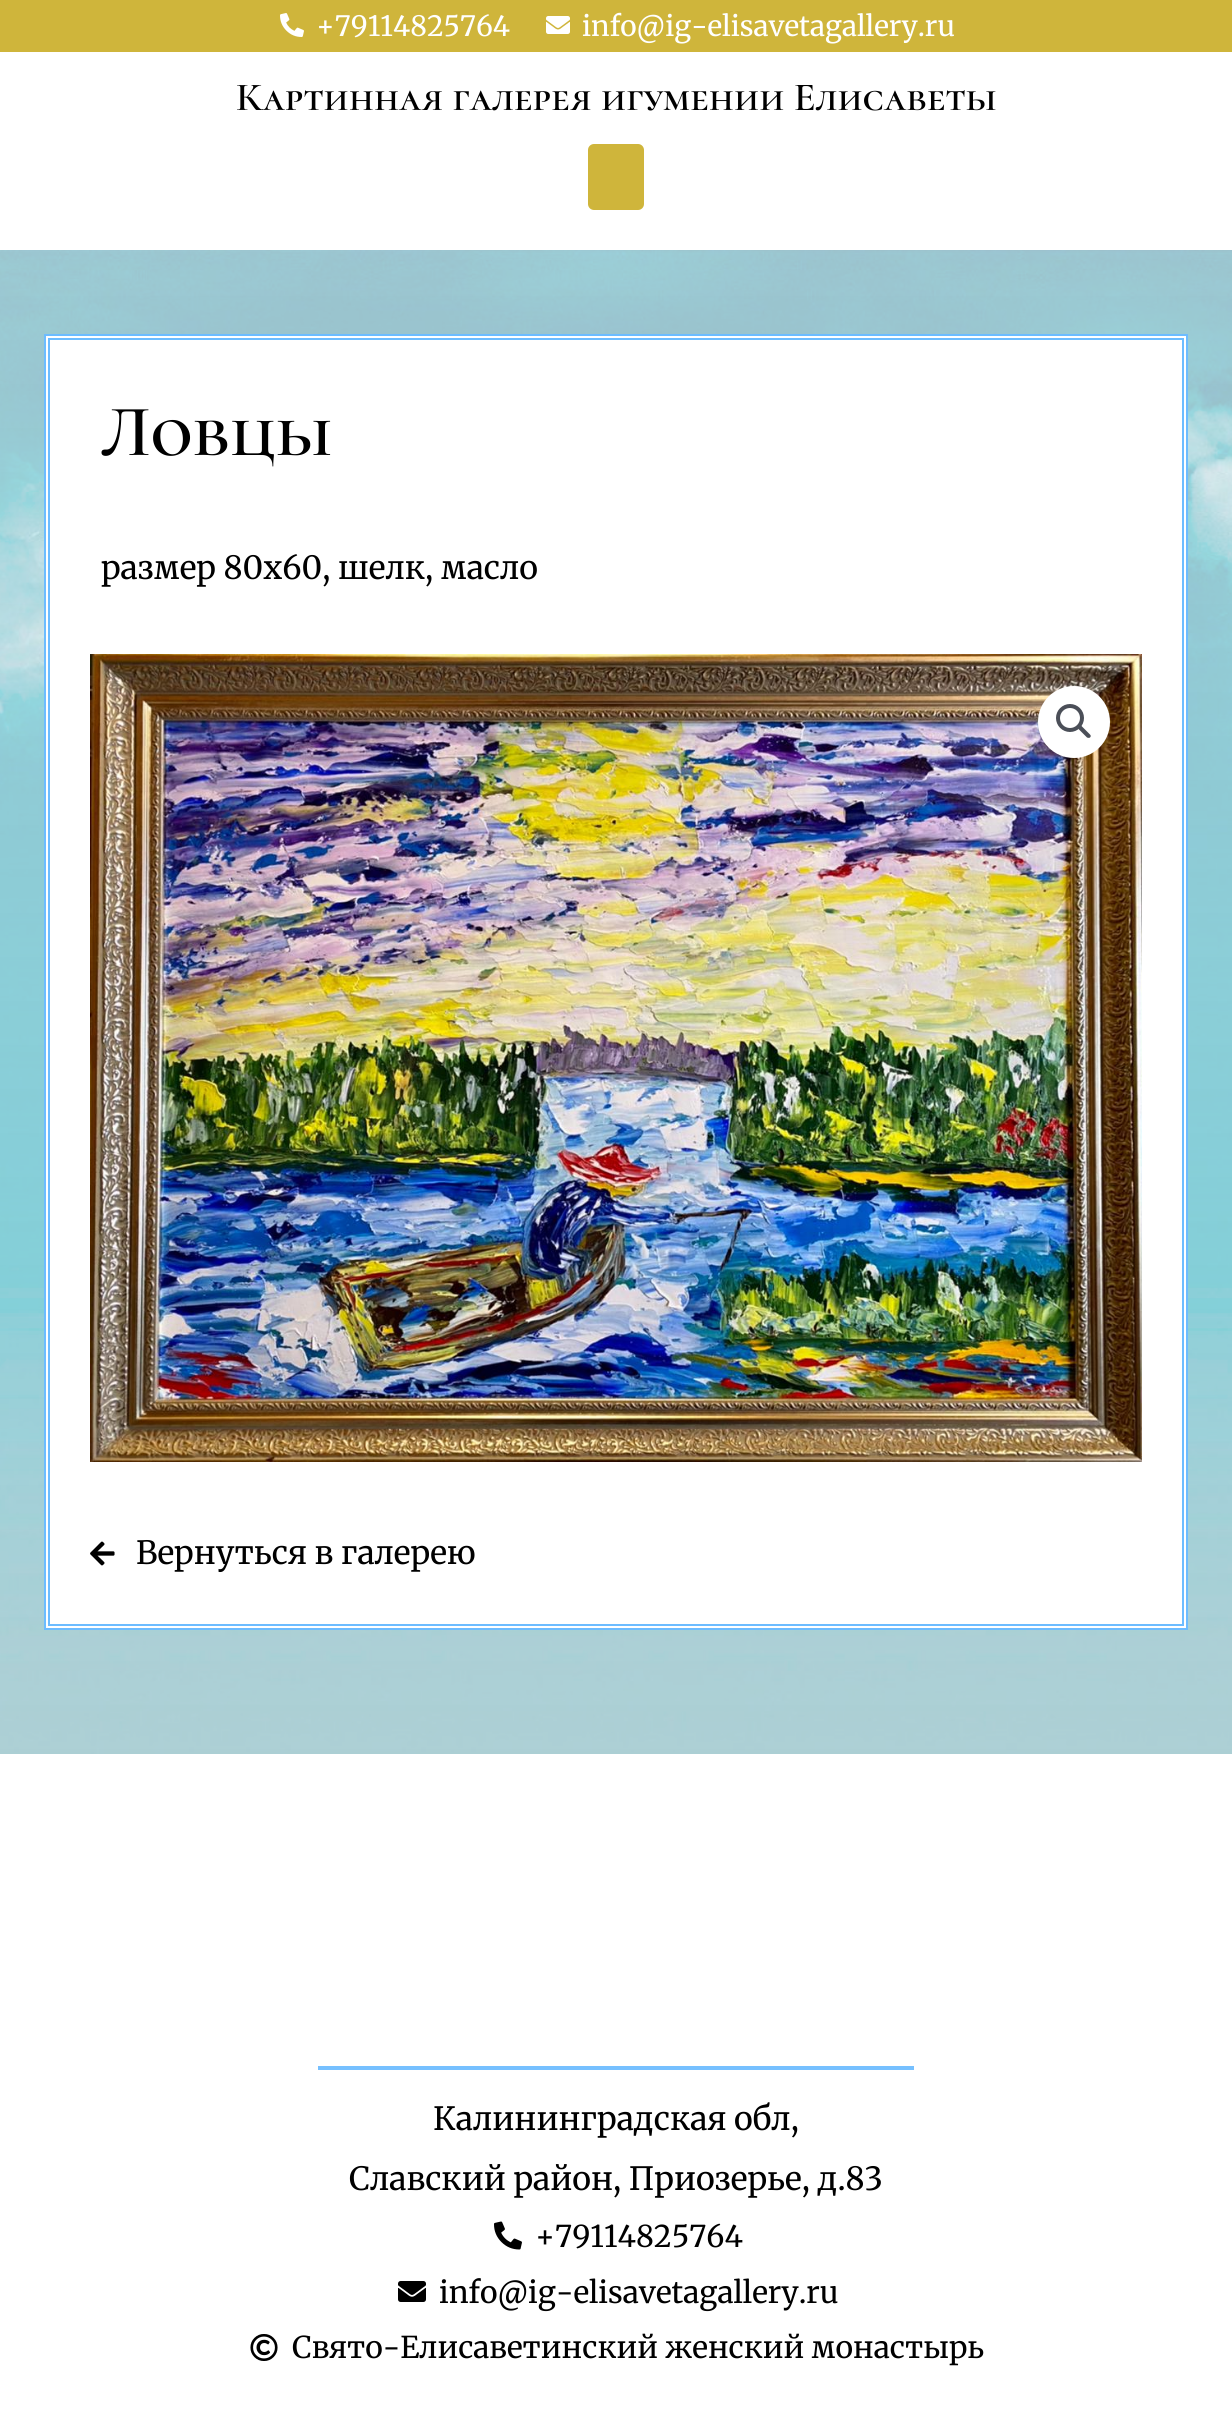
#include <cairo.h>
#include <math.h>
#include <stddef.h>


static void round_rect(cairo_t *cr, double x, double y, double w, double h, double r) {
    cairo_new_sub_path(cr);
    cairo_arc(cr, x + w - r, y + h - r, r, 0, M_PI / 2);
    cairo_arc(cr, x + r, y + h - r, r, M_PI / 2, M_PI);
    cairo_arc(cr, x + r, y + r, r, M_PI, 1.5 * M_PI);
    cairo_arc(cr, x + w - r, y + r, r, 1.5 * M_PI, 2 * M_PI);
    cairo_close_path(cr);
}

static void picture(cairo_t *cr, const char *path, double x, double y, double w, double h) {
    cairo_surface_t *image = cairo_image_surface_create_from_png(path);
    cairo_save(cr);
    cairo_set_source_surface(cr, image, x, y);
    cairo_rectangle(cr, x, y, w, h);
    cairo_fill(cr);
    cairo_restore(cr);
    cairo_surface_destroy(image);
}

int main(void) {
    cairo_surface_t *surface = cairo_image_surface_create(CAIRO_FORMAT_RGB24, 1232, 2416);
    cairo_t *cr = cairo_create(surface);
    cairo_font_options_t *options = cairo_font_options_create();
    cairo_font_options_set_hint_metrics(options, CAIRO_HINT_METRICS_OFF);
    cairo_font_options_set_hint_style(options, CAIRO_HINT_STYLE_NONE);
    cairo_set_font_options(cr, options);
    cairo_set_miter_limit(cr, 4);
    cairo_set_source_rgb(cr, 1, 1, 1);
    cairo_paint(cr);
    cairo_set_source_rgb(cr, 0.812, 0.71, 0.231);
    cairo_rectangle(cr, 0, 0, 1232, 52);
    cairo_fill(cr);
    picture(cr, "img1.png", 280, 13, 24, 24);
    cairo_select_font_face(cr, "Merriweather Light", CAIRO_FONT_SLANT_NORMAL, CAIRO_FONT_WEIGHT_NORMAL);
    cairo_set_font_size(cr, 28);
    cairo_set_source_rgb(cr, 1, 1, 1);
    cairo_move_to(cr, 316, 36);
    cairo_show_text(cr, "+79114825764");
    picture(cr, "img2.png", 546, 16, 24, 18);
    cairo_move_to(cr, 582, 36);
    cairo_show_text(cr, "info@ig-elisavetagallery.ru");
    cairo_select_font_face(cr, "Cormorant Unicase SemiBold", CAIRO_FONT_SLANT_NORMAL, CAIRO_FONT_WEIGHT_NORMAL);
    cairo_set_font_size(cr, 40);
    cairo_set_source_rgb(cr, 0, 0, 0);
    cairo_move_to(cr, 236, 110);
    cairo_show_text(cr, "Картинная галерея игумении Елисаветы");
    cairo_set_source_rgb(cr, 0.812, 0.71, 0.231);
    round_rect(cr, 588, 144, 56, 66, 6);
    cairo_fill(cr);
    picture(cr, "img3.png", 0, 250, 1232, 1504);
    cairo_set_source_rgb(cr, 1, 1, 1);
    cairo_rectangle(cr, 45, 335, 1142, 1294);
    cairo_fill_preserve(cr);
    cairo_set_source_rgb(cr, 0.424, 0.737, 1);
    cairo_stroke(cr);
    cairo_rectangle(cr, 49, 339, 1134, 1286);
    cairo_stroke(cr);
    cairo_set_font_size(cr, 73);
    cairo_set_source_rgb(cr, 0, 0, 0);
    cairo_move_to(cr, 101, 455);
    cairo_show_text(cr, "Ловцы");
    cairo_select_font_face(cr, "Merriweather Light", CAIRO_FONT_SLANT_NORMAL, CAIRO_FONT_WEIGHT_NORMAL);
    cairo_set_font_size(cr, 32);
    cairo_move_to(cr, 101, 579);
    cairo_show_text(cr, "размер 80х60, шелк, масло");
    picture(cr, "img4.png", 90, 654, 1052, 808);
    cairo_set_source_rgb(cr, 1, 1, 1);
    cairo_arc(cr, 1074, 722, 36, 0, 2 * M_PI);
    cairo_fill(cr);
    cairo_arc(cr, 1070, 718, 12, 0, 2 * M_PI);
    cairo_set_source_rgb(cr, 0.294, 0.31, 0.345);
    cairo_set_line_width(cr, 4);
    cairo_stroke(cr);
    cairo_new_path(cr);
    cairo_move_to(cr, 1078.5, 726);
    cairo_curve_to(cr, 1079.5, 725, 1081, 725, 1081.5, 726);
    cairo_line_to(cr, 1090, 734.5);
    cairo_curve_to(cr, 1091, 735.5, 1091, 736.5, 1090, 737.5);
    cairo_curve_to(cr, 1089.5, 738, 1088, 738, 1087, 737.5);
    cairo_line_to(cr, 1078.5, 729);
    cairo_curve_to(cr, 1078, 728, 1078, 727, 1078.5, 726);
    cairo_close_path(cr);
    cairo_fill(cr);
    picture(cr, "img5.png", 90, 1541, 25, 25);
    cairo_set_source_rgb(cr, 0, 0, 0);
    cairo_move_to(cr, 136, 1564);
    cairo_show_text(cr, "Вернуться в галерею");
    cairo_set_source_rgb(cr, 0.463, 0.753, 1);
    cairo_rectangle(cr, 318, 2066, 596, 4);
    cairo_fill(cr);
    cairo_set_source_rgb(cr, 0, 0, 0);
    cairo_move_to(cr, 433, 2130);
    cairo_show_text(cr, "Калининградская обл,");
    cairo_move_to(cr, 349, 2190);
    cairo_show_text(cr, "Славский район, Приозерье, д.83");
    picture(cr, "img6.png", 494, 2221, 28, 29);
    cairo_set_font_size(cr, 30);
    cairo_move_to(cr, 535, 2247);
    cairo_show_text(cr, "+79114825764");
    picture(cr, "img7.png", 398, 2281, 28, 21);
    cairo_move_to(cr, 439, 2303);
    cairo_show_text(cr, "info@ig-elisavetagallery.ru");
    picture(cr, "img8.png", 250, 2334, 28, 27);
    cairo_move_to(cr, 292, 2358);
    cairo_show_text(cr, "Свято-Елисаветинский женский монастырь");
    cairo_surface_write_to_png(surface, "page.png");
    cairo_font_options_destroy(options);
    cairo_destroy(cr);
    cairo_surface_destroy(surface);
    return 0;
}
